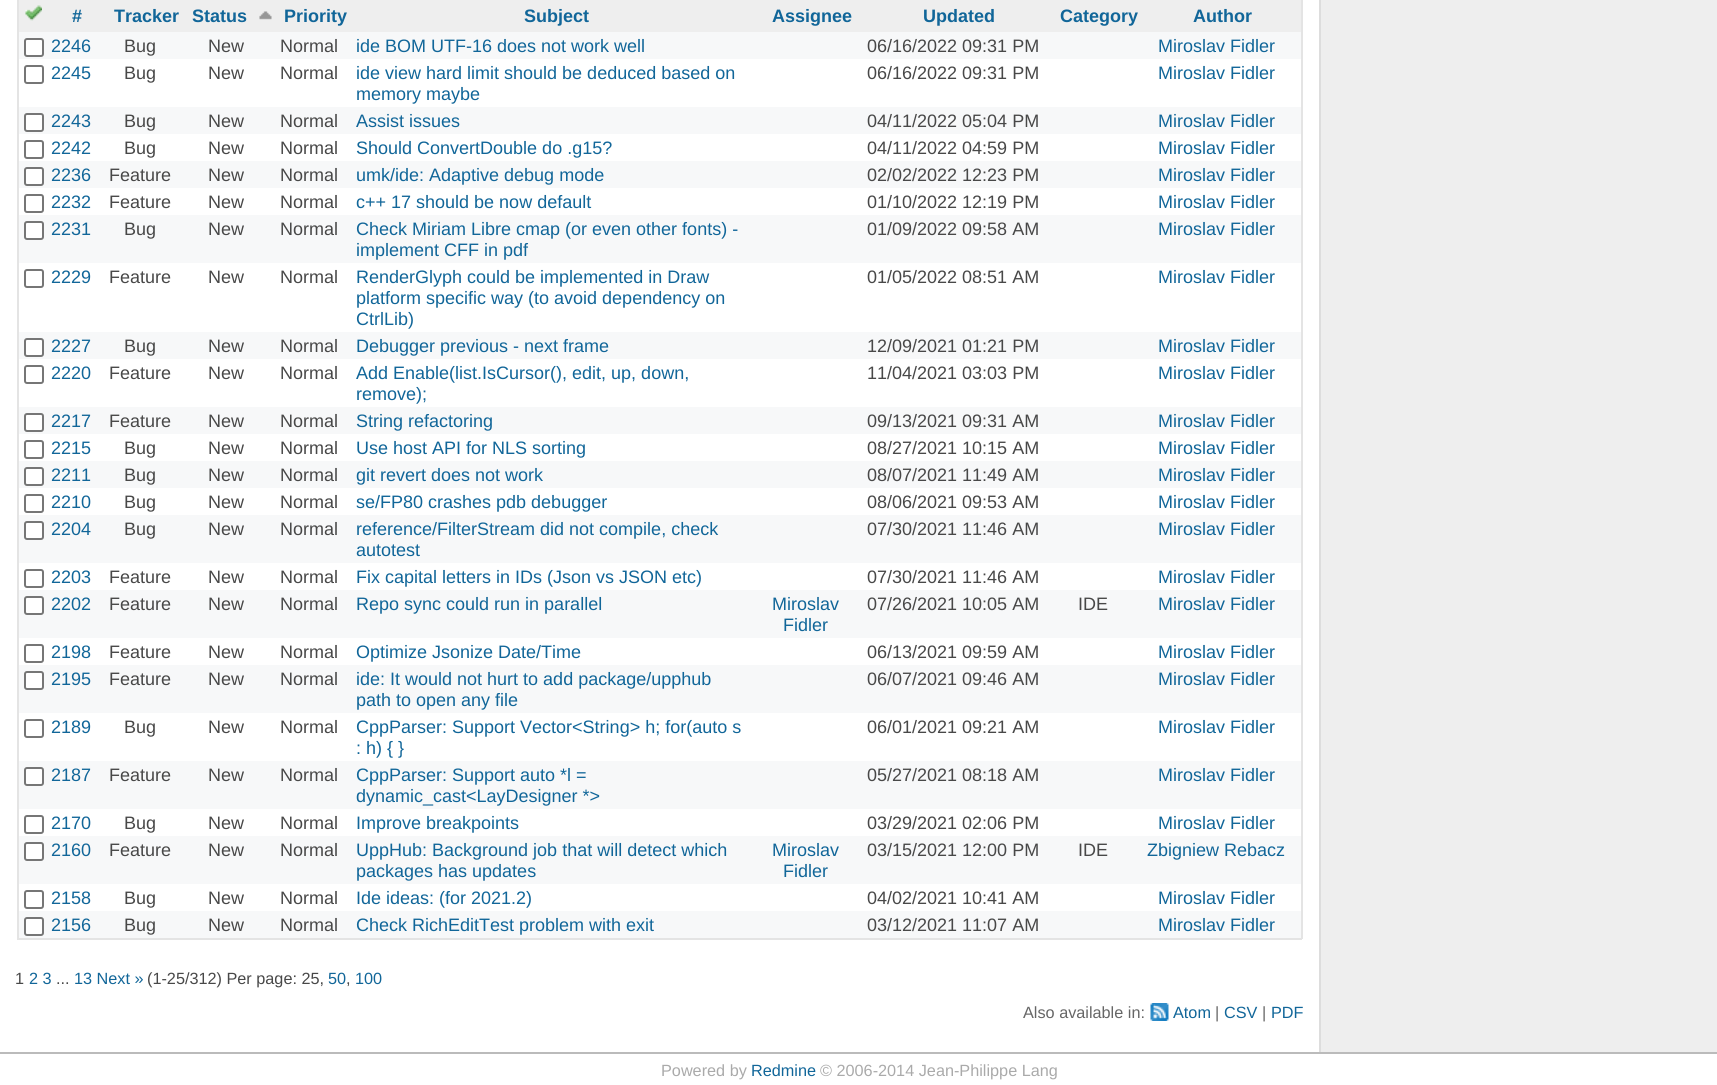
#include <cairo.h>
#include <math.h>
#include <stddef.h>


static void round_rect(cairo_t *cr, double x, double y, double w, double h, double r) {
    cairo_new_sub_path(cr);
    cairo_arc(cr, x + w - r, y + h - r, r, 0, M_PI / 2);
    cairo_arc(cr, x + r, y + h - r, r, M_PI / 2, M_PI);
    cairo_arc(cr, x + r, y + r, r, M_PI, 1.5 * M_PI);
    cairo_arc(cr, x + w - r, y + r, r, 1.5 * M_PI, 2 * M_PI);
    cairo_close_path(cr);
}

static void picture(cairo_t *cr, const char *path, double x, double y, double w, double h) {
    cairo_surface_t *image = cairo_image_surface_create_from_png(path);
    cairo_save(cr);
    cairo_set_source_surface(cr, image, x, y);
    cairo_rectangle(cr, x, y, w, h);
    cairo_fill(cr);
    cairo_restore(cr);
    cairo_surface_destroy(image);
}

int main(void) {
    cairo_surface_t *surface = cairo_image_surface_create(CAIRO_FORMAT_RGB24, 1717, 1085);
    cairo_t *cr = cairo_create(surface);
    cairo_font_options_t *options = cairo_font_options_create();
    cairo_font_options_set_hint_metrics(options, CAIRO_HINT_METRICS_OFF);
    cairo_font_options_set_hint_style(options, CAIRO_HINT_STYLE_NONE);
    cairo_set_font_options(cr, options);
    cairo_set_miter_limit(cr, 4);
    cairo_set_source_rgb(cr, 1, 1, 1);
    cairo_paint(cr);
    cairo_set_source_rgb(cr, 0.933, 0.933, 0.933);
    cairo_rectangle(cr, 1321, 0, 396, 1052);
    cairo_fill(cr);
    cairo_set_source_rgb(cr, 0.867, 0.867, 0.867);
    cairo_rectangle(cr, 1319, 0, 2, 1052);
    cairo_fill(cr);
    cairo_set_source_rgb(cr, 0.894, 0.894, 0.894);
    cairo_rectangle(cr, 1301, 0, 2, 939);
    cairo_fill(cr);
    cairo_rectangle(cr, 17, 938, 1285, 2);
    cairo_fill(cr);
    cairo_rectangle(cr, 17, 0, 2, 939);
    cairo_fill(cr);
    cairo_set_source_rgb(cr, 0.933, 0.933, 0.933);
    cairo_rectangle(cr, 19, 0, 1282, 32);
    cairo_fill(cr);
    picture(cr, "img1.png", 25, 5, 17, 16);
    cairo_select_font_face(cr, "Liberation Sans", CAIRO_FONT_SLANT_NORMAL, CAIRO_FONT_WEIGHT_BOLD);
    cairo_set_font_size(cr, 18);
    cairo_set_source_rgb(cr, 0.067, 0.4, 0.6);
    cairo_move_to(cr, 72, 22);
    cairo_show_text(cr, "#");
    cairo_move_to(cr, 114, 22);
    cairo_show_text(cr, "Tracker");
    cairo_move_to(cr, 192, 22);
    cairo_show_text(cr, "Status");
    picture(cr, "img2.png", 259, 11, 13, 9);
    cairo_move_to(cr, 284, 22);
    cairo_show_text(cr, "Priority");
    cairo_move_to(cr, 524, 22);
    cairo_show_text(cr, "Subject");
    cairo_move_to(cr, 772, 22);
    cairo_show_text(cr, "Assignee");
    cairo_move_to(cr, 923, 22);
    cairo_show_text(cr, "Updated");
    cairo_move_to(cr, 1060, 22);
    cairo_show_text(cr, "Category");
    cairo_move_to(cr, 1193, 22);
    cairo_show_text(cr, "Author");
    cairo_set_source_rgb(cr, 0.965, 0.969, 0.973);
    cairo_rectangle(cr, 19, 32, 1282, 27);
    cairo_fill(cr);
    cairo_set_source_rgb(cr, 1, 1, 1);
    round_rect(cr, 25, 39, 18, 17, 2);
    cairo_fill_preserve(cr);
    cairo_set_source_rgb(cr, 0.463, 0.463, 0.463);
    cairo_stroke(cr);
    cairo_select_font_face(cr, "Liberation Sans", CAIRO_FONT_SLANT_NORMAL, CAIRO_FONT_WEIGHT_NORMAL);
    cairo_set_source_rgb(cr, 0.067, 0.4, 0.6);
    cairo_move_to(cr, 51, 52);
    cairo_show_text(cr, "2246");
    cairo_set_source_rgb(cr, 0.282, 0.282, 0.282);
    cairo_move_to(cr, 124, 52);
    cairo_show_text(cr, "Bug");
    cairo_move_to(cr, 208, 52);
    cairo_show_text(cr, "New");
    cairo_move_to(cr, 280, 52);
    cairo_show_text(cr, "Normal");
    cairo_set_source_rgb(cr, 0.067, 0.4, 0.6);
    cairo_move_to(cr, 356, 52);
    cairo_show_text(cr, "ide BOM UTF-16 does not work well");
    cairo_set_source_rgb(cr, 0.282, 0.282, 0.282);
    cairo_move_to(cr, 867, 52);
    cairo_show_text(cr, "06/16/2022 09:31 PM");
    cairo_set_source_rgb(cr, 0.067, 0.4, 0.6);
    cairo_move_to(cr, 1158, 52);
    cairo_show_text(cr, "Miroslav Fidler");
    round_rect(cr, 25, 66, 18, 17, 2);
    cairo_set_source_rgb(cr, 0.463, 0.463, 0.463);
    cairo_stroke(cr);
    cairo_set_source_rgb(cr, 0.067, 0.4, 0.6);
    cairo_move_to(cr, 51, 79);
    cairo_show_text(cr, "2245");
    cairo_set_source_rgb(cr, 0.282, 0.282, 0.282);
    cairo_move_to(cr, 124, 79);
    cairo_show_text(cr, "Bug");
    cairo_move_to(cr, 208, 79);
    cairo_show_text(cr, "New");
    cairo_move_to(cr, 280, 79);
    cairo_show_text(cr, "Normal");
    cairo_set_source_rgb(cr, 0.067, 0.4, 0.6);
    cairo_move_to(cr, 356, 79);
    cairo_show_text(cr, "ide view hard limit should be deduced based on");
    cairo_move_to(cr, 356, 100);
    cairo_show_text(cr, "memory maybe");
    cairo_set_source_rgb(cr, 0.282, 0.282, 0.282);
    cairo_move_to(cr, 867, 79);
    cairo_show_text(cr, "06/16/2022 09:31 PM");
    cairo_set_source_rgb(cr, 0.067, 0.4, 0.6);
    cairo_move_to(cr, 1158, 79);
    cairo_show_text(cr, "Miroslav Fidler");
    cairo_set_source_rgb(cr, 0.965, 0.969, 0.973);
    cairo_rectangle(cr, 19, 107, 1282, 27);
    cairo_fill(cr);
    cairo_set_source_rgb(cr, 1, 1, 1);
    round_rect(cr, 25, 114, 18, 17, 2);
    cairo_fill_preserve(cr);
    cairo_set_source_rgb(cr, 0.463, 0.463, 0.463);
    cairo_stroke(cr);
    cairo_set_source_rgb(cr, 0.067, 0.4, 0.6);
    cairo_move_to(cr, 51, 127);
    cairo_show_text(cr, "2243");
    cairo_set_source_rgb(cr, 0.282, 0.282, 0.282);
    cairo_move_to(cr, 124, 127);
    cairo_show_text(cr, "Bug");
    cairo_move_to(cr, 208, 127);
    cairo_show_text(cr, "New");
    cairo_move_to(cr, 280, 127);
    cairo_show_text(cr, "Normal");
    cairo_set_source_rgb(cr, 0.067, 0.4, 0.6);
    cairo_move_to(cr, 356, 127);
    cairo_show_text(cr, "Assist issues");
    cairo_set_source_rgb(cr, 0.282, 0.282, 0.282);
    cairo_move_to(cr, 867, 127);
    cairo_show_text(cr, "04/11/2022 05:04 PM");
    cairo_set_source_rgb(cr, 0.067, 0.4, 0.6);
    cairo_move_to(cr, 1158, 127);
    cairo_show_text(cr, "Miroslav Fidler");
    round_rect(cr, 25, 141, 18, 17, 2);
    cairo_set_source_rgb(cr, 0.463, 0.463, 0.463);
    cairo_stroke(cr);
    cairo_set_source_rgb(cr, 0.067, 0.4, 0.6);
    cairo_move_to(cr, 51, 154);
    cairo_show_text(cr, "2242");
    cairo_set_source_rgb(cr, 0.282, 0.282, 0.282);
    cairo_move_to(cr, 124, 154);
    cairo_show_text(cr, "Bug");
    cairo_move_to(cr, 208, 154);
    cairo_show_text(cr, "New");
    cairo_move_to(cr, 280, 154);
    cairo_show_text(cr, "Normal");
    cairo_set_source_rgb(cr, 0.067, 0.4, 0.6);
    cairo_move_to(cr, 356, 154);
    cairo_show_text(cr, "Should ConvertDouble do .g15?");
    cairo_set_source_rgb(cr, 0.282, 0.282, 0.282);
    cairo_move_to(cr, 867, 154);
    cairo_show_text(cr, "04/11/2022 04:59 PM");
    cairo_set_source_rgb(cr, 0.067, 0.4, 0.6);
    cairo_move_to(cr, 1158, 154);
    cairo_show_text(cr, "Miroslav Fidler");
    cairo_set_source_rgb(cr, 0.965, 0.969, 0.973);
    cairo_rectangle(cr, 19, 161, 1282, 27);
    cairo_fill(cr);
    cairo_set_source_rgb(cr, 1, 1, 1);
    round_rect(cr, 25, 168, 18, 17, 2);
    cairo_fill_preserve(cr);
    cairo_set_source_rgb(cr, 0.463, 0.463, 0.463);
    cairo_stroke(cr);
    cairo_set_source_rgb(cr, 0.067, 0.4, 0.6);
    cairo_move_to(cr, 51, 181);
    cairo_show_text(cr, "2236");
    cairo_set_source_rgb(cr, 0.282, 0.282, 0.282);
    cairo_move_to(cr, 109, 181);
    cairo_show_text(cr, "Feature");
    cairo_move_to(cr, 208, 181);
    cairo_show_text(cr, "New");
    cairo_move_to(cr, 280, 181);
    cairo_show_text(cr, "Normal");
    cairo_set_source_rgb(cr, 0.067, 0.4, 0.6);
    cairo_move_to(cr, 356, 181);
    cairo_show_text(cr, "umk/ide: Adaptive debug mode");
    cairo_set_source_rgb(cr, 0.282, 0.282, 0.282);
    cairo_move_to(cr, 867, 181);
    cairo_show_text(cr, "02/02/2022 12:23 PM");
    cairo_set_source_rgb(cr, 0.067, 0.4, 0.6);
    cairo_move_to(cr, 1158, 181);
    cairo_show_text(cr, "Miroslav Fidler");
    round_rect(cr, 25, 195, 18, 17, 2);
    cairo_set_source_rgb(cr, 0.463, 0.463, 0.463);
    cairo_stroke(cr);
    cairo_set_source_rgb(cr, 0.067, 0.4, 0.6);
    cairo_move_to(cr, 51, 208);
    cairo_show_text(cr, "2232");
    cairo_set_source_rgb(cr, 0.282, 0.282, 0.282);
    cairo_move_to(cr, 109, 208);
    cairo_show_text(cr, "Feature");
    cairo_move_to(cr, 208, 208);
    cairo_show_text(cr, "New");
    cairo_move_to(cr, 280, 208);
    cairo_show_text(cr, "Normal");
    cairo_set_source_rgb(cr, 0.067, 0.4, 0.6);
    cairo_move_to(cr, 356, 208);
    cairo_show_text(cr, "c++ 17 should be now default");
    cairo_set_source_rgb(cr, 0.282, 0.282, 0.282);
    cairo_move_to(cr, 867, 208);
    cairo_show_text(cr, "01/10/2022 12:19 PM");
    cairo_set_source_rgb(cr, 0.067, 0.4, 0.6);
    cairo_move_to(cr, 1158, 208);
    cairo_show_text(cr, "Miroslav Fidler");
    cairo_set_source_rgb(cr, 0.965, 0.969, 0.973);
    cairo_rectangle(cr, 19, 215, 1282, 48);
    cairo_fill(cr);
    cairo_set_source_rgb(cr, 1, 1, 1);
    round_rect(cr, 25, 222, 18, 17, 2);
    cairo_fill_preserve(cr);
    cairo_set_source_rgb(cr, 0.463, 0.463, 0.463);
    cairo_stroke(cr);
    cairo_set_source_rgb(cr, 0.067, 0.4, 0.6);
    cairo_move_to(cr, 51, 235);
    cairo_show_text(cr, "2231");
    cairo_set_source_rgb(cr, 0.282, 0.282, 0.282);
    cairo_move_to(cr, 124, 235);
    cairo_show_text(cr, "Bug");
    cairo_move_to(cr, 208, 235);
    cairo_show_text(cr, "New");
    cairo_move_to(cr, 280, 235);
    cairo_show_text(cr, "Normal");
    cairo_set_source_rgb(cr, 0.067, 0.4, 0.6);
    cairo_move_to(cr, 356, 235);
    cairo_show_text(cr, "Check Miriam Libre cmap (or even other fonts) -");
    cairo_move_to(cr, 356, 256);
    cairo_show_text(cr, "implement CFF in pdf");
    cairo_set_source_rgb(cr, 0.282, 0.282, 0.282);
    cairo_move_to(cr, 867, 235);
    cairo_show_text(cr, "01/09/2022 09:58 AM");
    cairo_set_source_rgb(cr, 0.067, 0.4, 0.6);
    cairo_move_to(cr, 1158, 235);
    cairo_show_text(cr, "Miroslav Fidler");
    round_rect(cr, 25, 270, 18, 17, 2);
    cairo_set_source_rgb(cr, 0.463, 0.463, 0.463);
    cairo_stroke(cr);
    cairo_set_source_rgb(cr, 0.067, 0.4, 0.6);
    cairo_move_to(cr, 51, 283);
    cairo_show_text(cr, "2229");
    cairo_set_source_rgb(cr, 0.282, 0.282, 0.282);
    cairo_move_to(cr, 109, 283);
    cairo_show_text(cr, "Feature");
    cairo_move_to(cr, 208, 283);
    cairo_show_text(cr, "New");
    cairo_move_to(cr, 280, 283);
    cairo_show_text(cr, "Normal");
    cairo_set_source_rgb(cr, 0.067, 0.4, 0.6);
    cairo_move_to(cr, 356, 283);
    cairo_show_text(cr, "RenderGlyph could be implemented in Draw");
    cairo_move_to(cr, 356, 304);
    cairo_show_text(cr, "platform specific way (to avoid dependency on");
    cairo_move_to(cr, 356, 325);
    cairo_show_text(cr, "CtrlLib)");
    cairo_set_source_rgb(cr, 0.282, 0.282, 0.282);
    cairo_move_to(cr, 867, 283);
    cairo_show_text(cr, "01/05/2022 08:51 AM");
    cairo_set_source_rgb(cr, 0.067, 0.4, 0.6);
    cairo_move_to(cr, 1158, 283);
    cairo_show_text(cr, "Miroslav Fidler");
    cairo_set_source_rgb(cr, 0.965, 0.969, 0.973);
    cairo_rectangle(cr, 19, 332, 1282, 27);
    cairo_fill(cr);
    cairo_set_source_rgb(cr, 1, 1, 1);
    round_rect(cr, 25, 339, 18, 17, 2);
    cairo_fill_preserve(cr);
    cairo_set_source_rgb(cr, 0.463, 0.463, 0.463);
    cairo_stroke(cr);
    cairo_set_source_rgb(cr, 0.067, 0.4, 0.6);
    cairo_move_to(cr, 51, 352);
    cairo_show_text(cr, "2227");
    cairo_set_source_rgb(cr, 0.282, 0.282, 0.282);
    cairo_move_to(cr, 124, 352);
    cairo_show_text(cr, "Bug");
    cairo_move_to(cr, 208, 352);
    cairo_show_text(cr, "New");
    cairo_move_to(cr, 280, 352);
    cairo_show_text(cr, "Normal");
    cairo_set_source_rgb(cr, 0.067, 0.4, 0.6);
    cairo_move_to(cr, 356, 352);
    cairo_show_text(cr, "Debugger previous - next frame");
    cairo_set_source_rgb(cr, 0.282, 0.282, 0.282);
    cairo_move_to(cr, 867, 352);
    cairo_show_text(cr, "12/09/2021 01:21 PM");
    cairo_set_source_rgb(cr, 0.067, 0.4, 0.6);
    cairo_move_to(cr, 1158, 352);
    cairo_show_text(cr, "Miroslav Fidler");
    round_rect(cr, 25, 366, 18, 17, 2);
    cairo_set_source_rgb(cr, 0.463, 0.463, 0.463);
    cairo_stroke(cr);
    cairo_set_source_rgb(cr, 0.067, 0.4, 0.6);
    cairo_move_to(cr, 51, 379);
    cairo_show_text(cr, "2220");
    cairo_set_source_rgb(cr, 0.282, 0.282, 0.282);
    cairo_move_to(cr, 109, 379);
    cairo_show_text(cr, "Feature");
    cairo_move_to(cr, 208, 379);
    cairo_show_text(cr, "New");
    cairo_move_to(cr, 280, 379);
    cairo_show_text(cr, "Normal");
    cairo_set_source_rgb(cr, 0.067, 0.4, 0.6);
    cairo_move_to(cr, 356, 379);
    cairo_show_text(cr, "Add Enable(list.IsCursor(), edit, up, down,");
    cairo_move_to(cr, 356, 400);
    cairo_show_text(cr, "remove);");
    cairo_set_source_rgb(cr, 0.282, 0.282, 0.282);
    cairo_move_to(cr, 867, 379);
    cairo_show_text(cr, "11/04/2021 03:03 PM");
    cairo_set_source_rgb(cr, 0.067, 0.4, 0.6);
    cairo_move_to(cr, 1158, 379);
    cairo_show_text(cr, "Miroslav Fidler");
    cairo_set_source_rgb(cr, 0.965, 0.969, 0.973);
    cairo_rectangle(cr, 19, 407, 1282, 27);
    cairo_fill(cr);
    cairo_set_source_rgb(cr, 1, 1, 1);
    round_rect(cr, 25, 414, 18, 17, 2);
    cairo_fill_preserve(cr);
    cairo_set_source_rgb(cr, 0.463, 0.463, 0.463);
    cairo_stroke(cr);
    cairo_set_source_rgb(cr, 0.067, 0.4, 0.6);
    cairo_move_to(cr, 51, 427);
    cairo_show_text(cr, "2217");
    cairo_set_source_rgb(cr, 0.282, 0.282, 0.282);
    cairo_move_to(cr, 109, 427);
    cairo_show_text(cr, "Feature");
    cairo_move_to(cr, 208, 427);
    cairo_show_text(cr, "New");
    cairo_move_to(cr, 280, 427);
    cairo_show_text(cr, "Normal");
    cairo_set_source_rgb(cr, 0.067, 0.4, 0.6);
    cairo_move_to(cr, 356, 427);
    cairo_show_text(cr, "String refactoring");
    cairo_set_source_rgb(cr, 0.282, 0.282, 0.282);
    cairo_move_to(cr, 867, 427);
    cairo_show_text(cr, "09/13/2021 09:31 AM");
    cairo_set_source_rgb(cr, 0.067, 0.4, 0.6);
    cairo_move_to(cr, 1158, 427);
    cairo_show_text(cr, "Miroslav Fidler");
    round_rect(cr, 25, 441, 18, 17, 2);
    cairo_set_source_rgb(cr, 0.463, 0.463, 0.463);
    cairo_stroke(cr);
    cairo_set_source_rgb(cr, 0.067, 0.4, 0.6);
    cairo_move_to(cr, 51, 454);
    cairo_show_text(cr, "2215");
    cairo_set_source_rgb(cr, 0.282, 0.282, 0.282);
    cairo_move_to(cr, 124, 454);
    cairo_show_text(cr, "Bug");
    cairo_move_to(cr, 208, 454);
    cairo_show_text(cr, "New");
    cairo_move_to(cr, 280, 454);
    cairo_show_text(cr, "Normal");
    cairo_set_source_rgb(cr, 0.067, 0.4, 0.6);
    cairo_move_to(cr, 356, 454);
    cairo_show_text(cr, "Use host API for NLS sorting");
    cairo_set_source_rgb(cr, 0.282, 0.282, 0.282);
    cairo_move_to(cr, 867, 454);
    cairo_show_text(cr, "08/27/2021 10:15 AM");
    cairo_set_source_rgb(cr, 0.067, 0.4, 0.6);
    cairo_move_to(cr, 1158, 454);
    cairo_show_text(cr, "Miroslav Fidler");
    cairo_set_source_rgb(cr, 0.965, 0.969, 0.973);
    cairo_rectangle(cr, 19, 461, 1282, 27);
    cairo_fill(cr);
    cairo_set_source_rgb(cr, 1, 1, 1);
    round_rect(cr, 25, 468, 18, 17, 2);
    cairo_fill_preserve(cr);
    cairo_set_source_rgb(cr, 0.463, 0.463, 0.463);
    cairo_stroke(cr);
    cairo_set_source_rgb(cr, 0.067, 0.4, 0.6);
    cairo_move_to(cr, 51, 481);
    cairo_show_text(cr, "2211");
    cairo_set_source_rgb(cr, 0.282, 0.282, 0.282);
    cairo_move_to(cr, 124, 481);
    cairo_show_text(cr, "Bug");
    cairo_move_to(cr, 208, 481);
    cairo_show_text(cr, "New");
    cairo_move_to(cr, 280, 481);
    cairo_show_text(cr, "Normal");
    cairo_set_source_rgb(cr, 0.067, 0.4, 0.6);
    cairo_move_to(cr, 356, 481);
    cairo_show_text(cr, "git revert does not work");
    cairo_set_source_rgb(cr, 0.282, 0.282, 0.282);
    cairo_move_to(cr, 867, 481);
    cairo_show_text(cr, "08/07/2021 11:49 AM");
    cairo_set_source_rgb(cr, 0.067, 0.4, 0.6);
    cairo_move_to(cr, 1158, 481);
    cairo_show_text(cr, "Miroslav Fidler");
    round_rect(cr, 25, 495, 18, 17, 2);
    cairo_set_source_rgb(cr, 0.463, 0.463, 0.463);
    cairo_stroke(cr);
    cairo_set_source_rgb(cr, 0.067, 0.4, 0.6);
    cairo_move_to(cr, 51, 508);
    cairo_show_text(cr, "2210");
    cairo_set_source_rgb(cr, 0.282, 0.282, 0.282);
    cairo_move_to(cr, 124, 508);
    cairo_show_text(cr, "Bug");
    cairo_move_to(cr, 208, 508);
    cairo_show_text(cr, "New");
    cairo_move_to(cr, 280, 508);
    cairo_show_text(cr, "Normal");
    cairo_set_source_rgb(cr, 0.067, 0.4, 0.6);
    cairo_move_to(cr, 356, 508);
    cairo_show_text(cr, "se/FP80 crashes pdb debugger");
    cairo_set_source_rgb(cr, 0.282, 0.282, 0.282);
    cairo_move_to(cr, 867, 508);
    cairo_show_text(cr, "08/06/2021 09:53 AM");
    cairo_set_source_rgb(cr, 0.067, 0.4, 0.6);
    cairo_move_to(cr, 1158, 508);
    cairo_show_text(cr, "Miroslav Fidler");
    cairo_set_source_rgb(cr, 0.965, 0.969, 0.973);
    cairo_rectangle(cr, 19, 515, 1282, 48);
    cairo_fill(cr);
    cairo_set_source_rgb(cr, 1, 1, 1);
    round_rect(cr, 25, 522, 18, 17, 2);
    cairo_fill_preserve(cr);
    cairo_set_source_rgb(cr, 0.463, 0.463, 0.463);
    cairo_stroke(cr);
    cairo_set_source_rgb(cr, 0.067, 0.4, 0.6);
    cairo_move_to(cr, 51, 535);
    cairo_show_text(cr, "2204");
    cairo_set_source_rgb(cr, 0.282, 0.282, 0.282);
    cairo_move_to(cr, 124, 535);
    cairo_show_text(cr, "Bug");
    cairo_move_to(cr, 208, 535);
    cairo_show_text(cr, "New");
    cairo_move_to(cr, 280, 535);
    cairo_show_text(cr, "Normal");
    cairo_set_source_rgb(cr, 0.067, 0.4, 0.6);
    cairo_move_to(cr, 356, 535);
    cairo_show_text(cr, "reference/FilterStream did not compile, check");
    cairo_move_to(cr, 356, 556);
    cairo_show_text(cr, "autotest");
    cairo_set_source_rgb(cr, 0.282, 0.282, 0.282);
    cairo_move_to(cr, 867, 535);
    cairo_show_text(cr, "07/30/2021 11:46 AM");
    cairo_set_source_rgb(cr, 0.067, 0.4, 0.6);
    cairo_move_to(cr, 1158, 535);
    cairo_show_text(cr, "Miroslav Fidler");
    round_rect(cr, 25, 570, 18, 17, 2);
    cairo_set_source_rgb(cr, 0.463, 0.463, 0.463);
    cairo_stroke(cr);
    cairo_set_source_rgb(cr, 0.067, 0.4, 0.6);
    cairo_move_to(cr, 51, 583);
    cairo_show_text(cr, "2203");
    cairo_set_source_rgb(cr, 0.282, 0.282, 0.282);
    cairo_move_to(cr, 109, 583);
    cairo_show_text(cr, "Feature");
    cairo_move_to(cr, 208, 583);
    cairo_show_text(cr, "New");
    cairo_move_to(cr, 280, 583);
    cairo_show_text(cr, "Normal");
    cairo_set_source_rgb(cr, 0.067, 0.4, 0.6);
    cairo_move_to(cr, 356, 583);
    cairo_show_text(cr, "Fix capital letters in IDs (Json vs JSON etc)");
    cairo_set_source_rgb(cr, 0.282, 0.282, 0.282);
    cairo_move_to(cr, 867, 583);
    cairo_show_text(cr, "07/30/2021 11:46 AM");
    cairo_set_source_rgb(cr, 0.067, 0.4, 0.6);
    cairo_move_to(cr, 1158, 583);
    cairo_show_text(cr, "Miroslav Fidler");
    cairo_set_source_rgb(cr, 0.965, 0.969, 0.973);
    cairo_rectangle(cr, 19, 590, 1282, 48);
    cairo_fill(cr);
    cairo_set_source_rgb(cr, 1, 1, 1);
    round_rect(cr, 25, 597, 18, 17, 2);
    cairo_fill_preserve(cr);
    cairo_set_source_rgb(cr, 0.463, 0.463, 0.463);
    cairo_stroke(cr);
    cairo_set_source_rgb(cr, 0.067, 0.4, 0.6);
    cairo_move_to(cr, 51, 610);
    cairo_show_text(cr, "2202");
    cairo_set_source_rgb(cr, 0.282, 0.282, 0.282);
    cairo_move_to(cr, 109, 610);
    cairo_show_text(cr, "Feature");
    cairo_move_to(cr, 208, 610);
    cairo_show_text(cr, "New");
    cairo_move_to(cr, 280, 610);
    cairo_show_text(cr, "Normal");
    cairo_set_source_rgb(cr, 0.067, 0.4, 0.6);
    cairo_move_to(cr, 356, 610);
    cairo_show_text(cr, "Repo sync could run in parallel");
    cairo_move_to(cr, 772, 610);
    cairo_show_text(cr, "Miroslav");
    cairo_move_to(cr, 783, 631);
    cairo_show_text(cr, "Fidler");
    cairo_set_source_rgb(cr, 0.282, 0.282, 0.282);
    cairo_move_to(cr, 867, 610);
    cairo_show_text(cr, "07/26/2021 10:05 AM");
    cairo_move_to(cr, 1078, 610);
    cairo_show_text(cr, "IDE");
    cairo_set_source_rgb(cr, 0.067, 0.4, 0.6);
    cairo_move_to(cr, 1158, 610);
    cairo_show_text(cr, "Miroslav Fidler");
    round_rect(cr, 25, 645, 18, 17, 2);
    cairo_set_source_rgb(cr, 0.463, 0.463, 0.463);
    cairo_stroke(cr);
    cairo_set_source_rgb(cr, 0.067, 0.4, 0.6);
    cairo_move_to(cr, 51, 658);
    cairo_show_text(cr, "2198");
    cairo_set_source_rgb(cr, 0.282, 0.282, 0.282);
    cairo_move_to(cr, 109, 658);
    cairo_show_text(cr, "Feature");
    cairo_move_to(cr, 208, 658);
    cairo_show_text(cr, "New");
    cairo_move_to(cr, 280, 658);
    cairo_show_text(cr, "Normal");
    cairo_set_source_rgb(cr, 0.067, 0.4, 0.6);
    cairo_move_to(cr, 356, 658);
    cairo_show_text(cr, "Optimize Jsonize Date/Time");
    cairo_set_source_rgb(cr, 0.282, 0.282, 0.282);
    cairo_move_to(cr, 867, 658);
    cairo_show_text(cr, "06/13/2021 09:59 AM");
    cairo_set_source_rgb(cr, 0.067, 0.4, 0.6);
    cairo_move_to(cr, 1158, 658);
    cairo_show_text(cr, "Miroslav Fidler");
    cairo_set_source_rgb(cr, 0.965, 0.969, 0.973);
    cairo_rectangle(cr, 19, 665, 1282, 48);
    cairo_fill(cr);
    cairo_set_source_rgb(cr, 1, 1, 1);
    round_rect(cr, 25, 672, 18, 17, 2);
    cairo_fill_preserve(cr);
    cairo_set_source_rgb(cr, 0.463, 0.463, 0.463);
    cairo_stroke(cr);
    cairo_set_source_rgb(cr, 0.067, 0.4, 0.6);
    cairo_move_to(cr, 51, 685);
    cairo_show_text(cr, "2195");
    cairo_set_source_rgb(cr, 0.282, 0.282, 0.282);
    cairo_move_to(cr, 109, 685);
    cairo_show_text(cr, "Feature");
    cairo_move_to(cr, 208, 685);
    cairo_show_text(cr, "New");
    cairo_move_to(cr, 280, 685);
    cairo_show_text(cr, "Normal");
    cairo_set_source_rgb(cr, 0.067, 0.4, 0.6);
    cairo_move_to(cr, 356, 685);
    cairo_show_text(cr, "ide: It would not hurt to add package/upphub");
    cairo_move_to(cr, 356, 706);
    cairo_show_text(cr, "path to open any file");
    cairo_set_source_rgb(cr, 0.282, 0.282, 0.282);
    cairo_move_to(cr, 867, 685);
    cairo_show_text(cr, "06/07/2021 09:46 AM");
    cairo_set_source_rgb(cr, 0.067, 0.4, 0.6);
    cairo_move_to(cr, 1158, 685);
    cairo_show_text(cr, "Miroslav Fidler");
    round_rect(cr, 25, 720, 18, 17, 2);
    cairo_set_source_rgb(cr, 0.463, 0.463, 0.463);
    cairo_stroke(cr);
    cairo_set_source_rgb(cr, 0.067, 0.4, 0.6);
    cairo_move_to(cr, 51, 733);
    cairo_show_text(cr, "2189");
    cairo_set_source_rgb(cr, 0.282, 0.282, 0.282);
    cairo_move_to(cr, 124, 733);
    cairo_show_text(cr, "Bug");
    cairo_move_to(cr, 208, 733);
    cairo_show_text(cr, "New");
    cairo_move_to(cr, 280, 733);
    cairo_show_text(cr, "Normal");
    cairo_set_source_rgb(cr, 0.067, 0.4, 0.6);
    cairo_move_to(cr, 356, 733);
    cairo_show_text(cr, "CppParser: Support Vector<String> h; for(auto s");
    cairo_move_to(cr, 356, 754);
    cairo_show_text(cr, ": h) { }");
    cairo_set_source_rgb(cr, 0.282, 0.282, 0.282);
    cairo_move_to(cr, 867, 733);
    cairo_show_text(cr, "06/01/2021 09:21 AM");
    cairo_set_source_rgb(cr, 0.067, 0.4, 0.6);
    cairo_move_to(cr, 1158, 733);
    cairo_show_text(cr, "Miroslav Fidler");
    cairo_set_source_rgb(cr, 0.965, 0.969, 0.973);
    cairo_rectangle(cr, 19, 761, 1282, 48);
    cairo_fill(cr);
    cairo_set_source_rgb(cr, 1, 1, 1);
    round_rect(cr, 25, 768, 18, 17, 2);
    cairo_fill_preserve(cr);
    cairo_set_source_rgb(cr, 0.463, 0.463, 0.463);
    cairo_stroke(cr);
    cairo_set_source_rgb(cr, 0.067, 0.4, 0.6);
    cairo_move_to(cr, 51, 781);
    cairo_show_text(cr, "2187");
    cairo_set_source_rgb(cr, 0.282, 0.282, 0.282);
    cairo_move_to(cr, 109, 781);
    cairo_show_text(cr, "Feature");
    cairo_move_to(cr, 208, 781);
    cairo_show_text(cr, "New");
    cairo_move_to(cr, 280, 781);
    cairo_show_text(cr, "Normal");
    cairo_set_source_rgb(cr, 0.067, 0.4, 0.6);
    cairo_move_to(cr, 356, 781);
    cairo_show_text(cr, "CppParser: Support auto *l =");
    cairo_move_to(cr, 356, 802);
    cairo_show_text(cr, "dynamic_cast<LayDesigner *>");
    cairo_set_source_rgb(cr, 0.282, 0.282, 0.282);
    cairo_move_to(cr, 867, 781);
    cairo_show_text(cr, "05/27/2021 08:18 AM");
    cairo_set_source_rgb(cr, 0.067, 0.4, 0.6);
    cairo_move_to(cr, 1158, 781);
    cairo_show_text(cr, "Miroslav Fidler");
    round_rect(cr, 25, 816, 18, 17, 2);
    cairo_set_source_rgb(cr, 0.463, 0.463, 0.463);
    cairo_stroke(cr);
    cairo_set_source_rgb(cr, 0.067, 0.4, 0.6);
    cairo_move_to(cr, 51, 829);
    cairo_show_text(cr, "2170");
    cairo_set_source_rgb(cr, 0.282, 0.282, 0.282);
    cairo_move_to(cr, 124, 829);
    cairo_show_text(cr, "Bug");
    cairo_move_to(cr, 208, 829);
    cairo_show_text(cr, "New");
    cairo_move_to(cr, 280, 829);
    cairo_show_text(cr, "Normal");
    cairo_set_source_rgb(cr, 0.067, 0.4, 0.6);
    cairo_move_to(cr, 356, 829);
    cairo_show_text(cr, "Improve breakpoints");
    cairo_set_source_rgb(cr, 0.282, 0.282, 0.282);
    cairo_move_to(cr, 867, 829);
    cairo_show_text(cr, "03/29/2021 02:06 PM");
    cairo_set_source_rgb(cr, 0.067, 0.4, 0.6);
    cairo_move_to(cr, 1158, 829);
    cairo_show_text(cr, "Miroslav Fidler");
    cairo_set_source_rgb(cr, 0.965, 0.969, 0.973);
    cairo_rectangle(cr, 19, 836, 1282, 48);
    cairo_fill(cr);
    cairo_set_source_rgb(cr, 1, 1, 1);
    round_rect(cr, 25, 843, 18, 17, 2);
    cairo_fill_preserve(cr);
    cairo_set_source_rgb(cr, 0.463, 0.463, 0.463);
    cairo_stroke(cr);
    cairo_set_source_rgb(cr, 0.067, 0.4, 0.6);
    cairo_move_to(cr, 51, 856);
    cairo_show_text(cr, "2160");
    cairo_set_source_rgb(cr, 0.282, 0.282, 0.282);
    cairo_move_to(cr, 109, 856);
    cairo_show_text(cr, "Feature");
    cairo_move_to(cr, 208, 856);
    cairo_show_text(cr, "New");
    cairo_move_to(cr, 280, 856);
    cairo_show_text(cr, "Normal");
    cairo_set_source_rgb(cr, 0.067, 0.4, 0.6);
    cairo_move_to(cr, 356, 856);
    cairo_show_text(cr, "UppHub: Background job that will detect which");
    cairo_move_to(cr, 356, 877);
    cairo_show_text(cr, "packages has updates");
    cairo_move_to(cr, 772, 856);
    cairo_show_text(cr, "Miroslav");
    cairo_move_to(cr, 783, 877);
    cairo_show_text(cr, "Fidler");
    cairo_set_source_rgb(cr, 0.282, 0.282, 0.282);
    cairo_move_to(cr, 867, 856);
    cairo_show_text(cr, "03/15/2021 12:00 PM");
    cairo_move_to(cr, 1078, 856);
    cairo_show_text(cr, "IDE");
    cairo_set_source_rgb(cr, 0.067, 0.4, 0.6);
    cairo_move_to(cr, 1147, 856);
    cairo_show_text(cr, "Zbigniew Rebacz");
    round_rect(cr, 25, 891, 18, 17, 2);
    cairo_set_source_rgb(cr, 0.463, 0.463, 0.463);
    cairo_stroke(cr);
    cairo_set_source_rgb(cr, 0.067, 0.4, 0.6);
    cairo_move_to(cr, 51, 904);
    cairo_show_text(cr, "2158");
    cairo_set_source_rgb(cr, 0.282, 0.282, 0.282);
    cairo_move_to(cr, 124, 904);
    cairo_show_text(cr, "Bug");
    cairo_move_to(cr, 208, 904);
    cairo_show_text(cr, "New");
    cairo_move_to(cr, 280, 904);
    cairo_show_text(cr, "Normal");
    cairo_set_source_rgb(cr, 0.067, 0.4, 0.6);
    cairo_move_to(cr, 356, 904);
    cairo_show_text(cr, "Ide ideas: (for 2021.2)");
    cairo_set_source_rgb(cr, 0.282, 0.282, 0.282);
    cairo_move_to(cr, 867, 904);
    cairo_show_text(cr, "04/02/2021 10:41 AM");
    cairo_set_source_rgb(cr, 0.067, 0.4, 0.6);
    cairo_move_to(cr, 1158, 904);
    cairo_show_text(cr, "Miroslav Fidler");
    cairo_set_source_rgb(cr, 0.965, 0.969, 0.973);
    cairo_rectangle(cr, 19, 911, 1282, 27);
    cairo_fill(cr);
    cairo_set_source_rgb(cr, 1, 1, 1);
    round_rect(cr, 25, 918, 18, 17, 2);
    cairo_fill_preserve(cr);
    cairo_set_source_rgb(cr, 0.463, 0.463, 0.463);
    cairo_stroke(cr);
    cairo_set_source_rgb(cr, 0.067, 0.4, 0.6);
    cairo_move_to(cr, 51, 931);
    cairo_show_text(cr, "2156");
    cairo_set_source_rgb(cr, 0.282, 0.282, 0.282);
    cairo_move_to(cr, 124, 931);
    cairo_show_text(cr, "Bug");
    cairo_move_to(cr, 208, 931);
    cairo_show_text(cr, "New");
    cairo_move_to(cr, 280, 931);
    cairo_show_text(cr, "Normal");
    cairo_set_source_rgb(cr, 0.067, 0.4, 0.6);
    cairo_move_to(cr, 356, 931);
    cairo_show_text(cr, "Check RichEditTest problem with exit");
    cairo_set_source_rgb(cr, 0.282, 0.282, 0.282);
    cairo_move_to(cr, 867, 931);
    cairo_show_text(cr, "03/12/2021 11:07 AM");
    cairo_set_source_rgb(cr, 0.067, 0.4, 0.6);
    cairo_move_to(cr, 1158, 931);
    cairo_show_text(cr, "Miroslav Fidler");
    cairo_set_font_size(cr, 16.25);
    cairo_set_source_rgb(cr, 0.282, 0.282, 0.282);
    cairo_move_to(cr, 15, 984);
    cairo_show_text(cr, "1");
    cairo_set_source_rgb(cr, 0.067, 0.4, 0.6);
    cairo_move_to(cr, 29, 984);
    cairo_show_text(cr, "2 3");
    cairo_set_source_rgb(cr, 0.282, 0.282, 0.282);
    cairo_move_to(cr, 56, 984);
    cairo_show_text(cr, "...");
    cairo_set_source_rgb(cr, 0.067, 0.4, 0.6);
    cairo_move_to(cr, 74, 984);
    cairo_show_text(cr, "13 Next »");
    cairo_set_source_rgb(cr, 0.282, 0.282, 0.282);
    cairo_move_to(cr, 147, 984);
    cairo_show_text(cr, "(1-25/312) Per page: 25,");
    cairo_set_source_rgb(cr, 0.067, 0.4, 0.6);
    cairo_move_to(cr, 328, 984);
    cairo_show_text(cr, "50");
    cairo_set_source_rgb(cr, 0.282, 0.282, 0.282);
    cairo_move_to(cr, 346, 984);
    cairo_show_text(cr, ",");
    cairo_set_source_rgb(cr, 0.067, 0.4, 0.6);
    cairo_move_to(cr, 355, 984);
    cairo_show_text(cr, "100");
    cairo_set_source_rgb(cr, 0.4, 0.4, 0.4);
    cairo_move_to(cr, 1023, 1018);
    cairo_show_text(cr, "Also available in:");
    picture(cr, "img3.png", 1150, 1003, 19, 18);
    cairo_set_source_rgb(cr, 0.067, 0.4, 0.6);
    cairo_move_to(cr, 1173, 1018);
    cairo_show_text(cr, "Atom");
    cairo_set_source_rgb(cr, 0.4, 0.4, 0.4);
    cairo_move_to(cr, 1215, 1018);
    cairo_show_text(cr, "|");
    cairo_set_source_rgb(cr, 0.067, 0.4, 0.6);
    cairo_move_to(cr, 1224, 1018);
    cairo_show_text(cr, "CSV");
    cairo_set_source_rgb(cr, 0.4, 0.4, 0.4);
    cairo_move_to(cr, 1262, 1018);
    cairo_show_text(cr, "|");
    cairo_set_source_rgb(cr, 0.067, 0.4, 0.6);
    cairo_move_to(cr, 1271, 1018);
    cairo_show_text(cr, "PDF");
    cairo_set_source_rgb(cr, 0.733, 0.733, 0.733);
    cairo_rectangle(cr, 0, 1052, 1717, 2);
    cairo_fill(cr);
    cairo_set_source_rgb(cr, 0.667, 0.667, 0.667);
    cairo_move_to(cr, 661, 1076);
    cairo_show_text(cr, "Powered by");
    cairo_set_source_rgb(cr, 0.067, 0.4, 0.6);
    cairo_move_to(cr, 751, 1076);
    cairo_show_text(cr, "Redmine");
    cairo_set_source_rgb(cr, 0.667, 0.667, 0.667);
    cairo_move_to(cr, 820, 1076);
    cairo_show_text(cr, "© 2006-2014 Jean-Philippe Lang");
    cairo_surface_write_to_png(surface, "page.png");
    cairo_font_options_destroy(options);
    cairo_destroy(cr);
    cairo_surface_destroy(surface);
    return 0;
}
